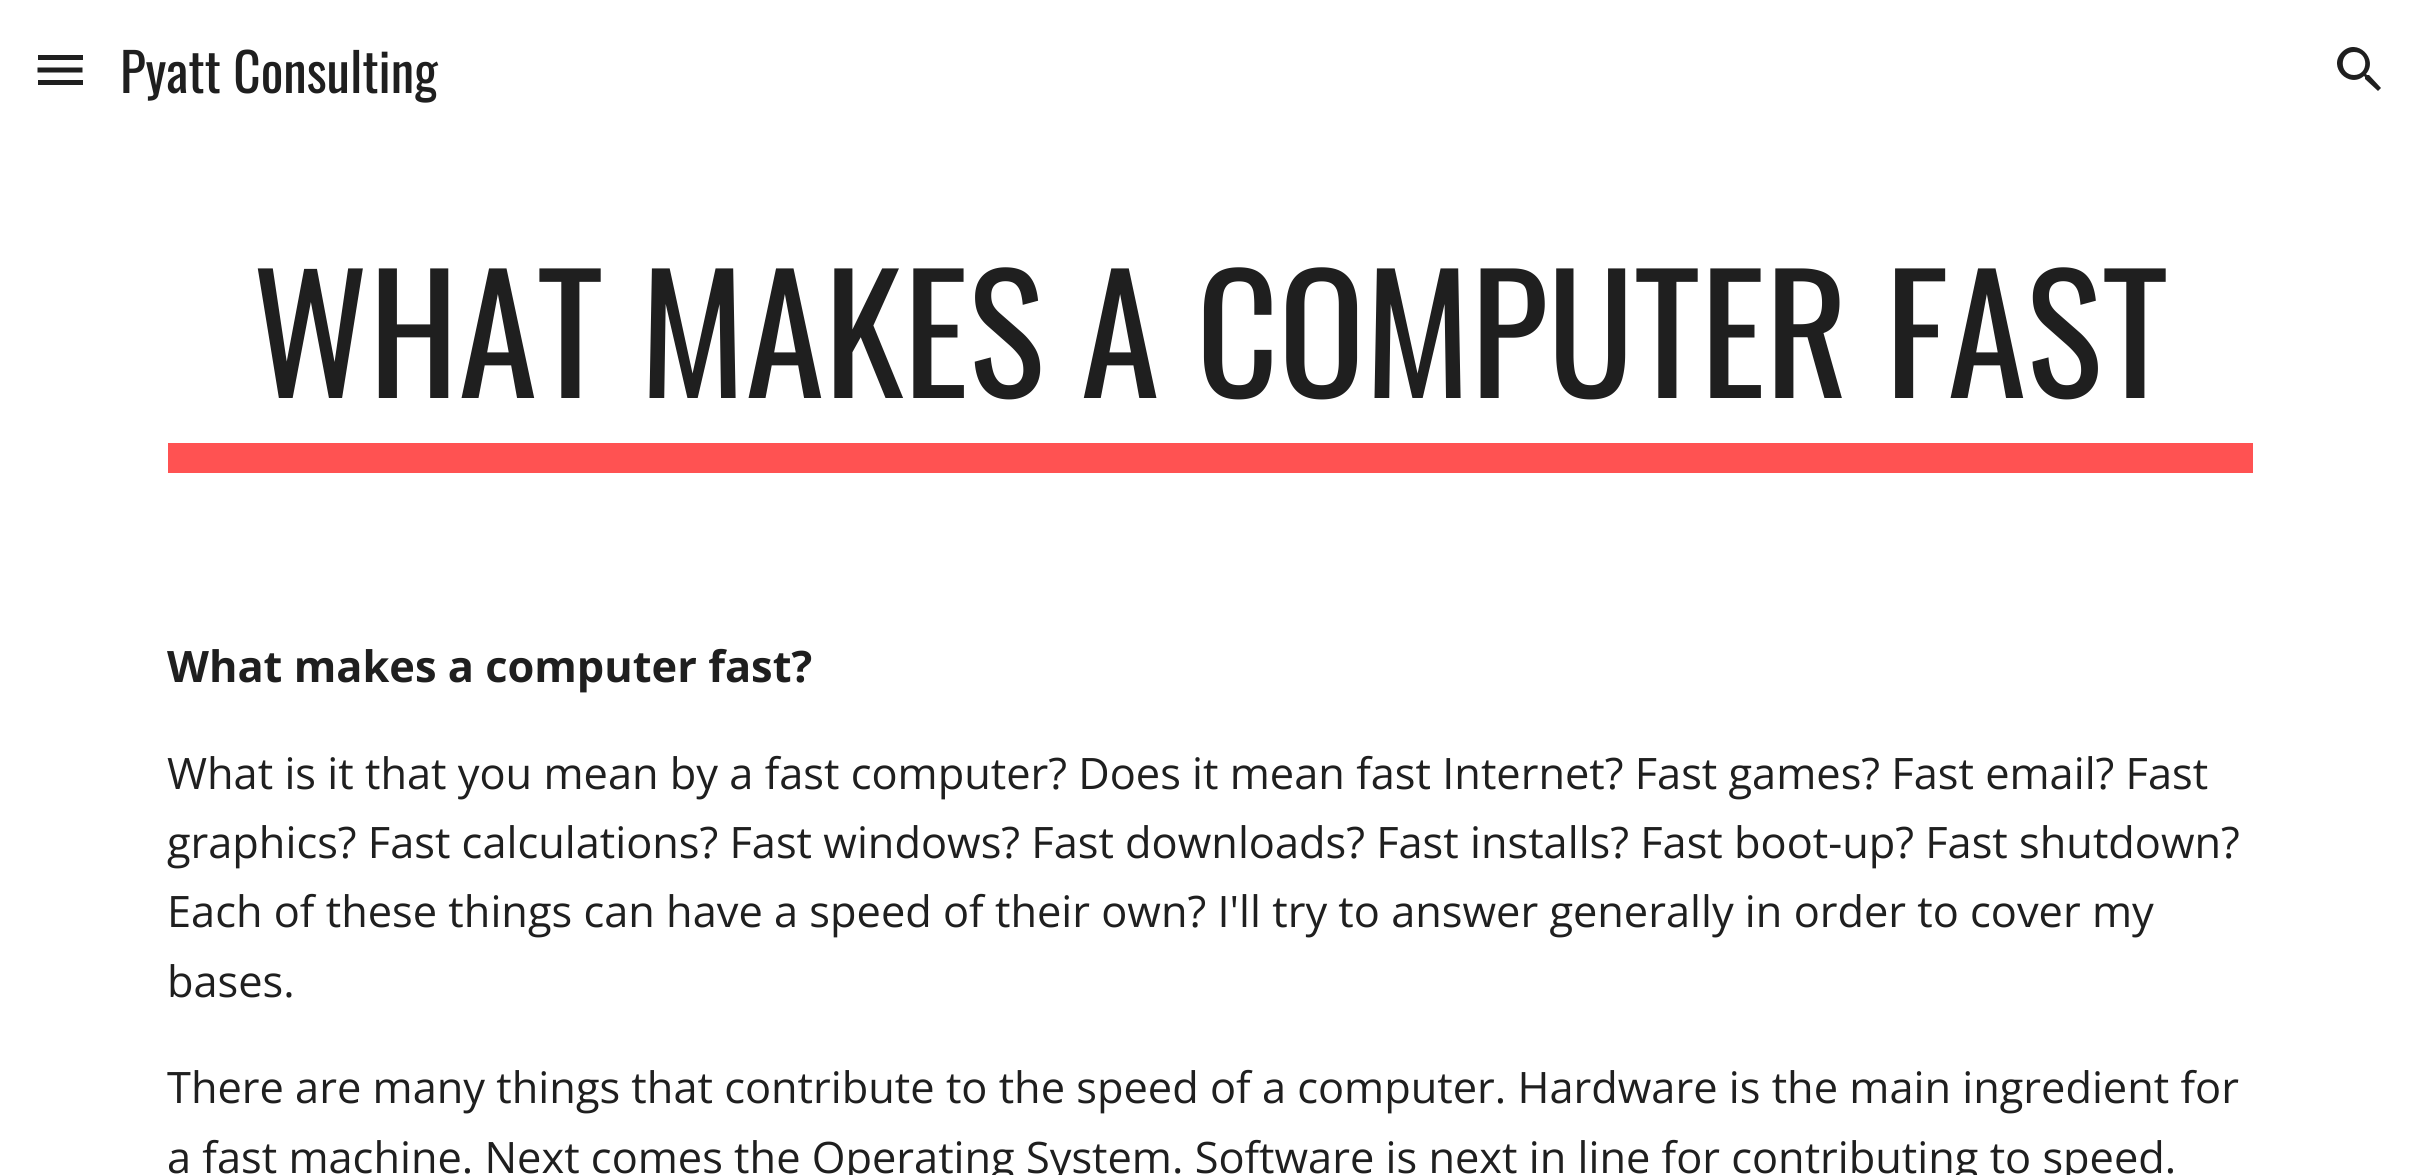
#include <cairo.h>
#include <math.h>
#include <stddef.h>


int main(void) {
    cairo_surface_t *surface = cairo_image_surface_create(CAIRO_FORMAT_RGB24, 2419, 1175);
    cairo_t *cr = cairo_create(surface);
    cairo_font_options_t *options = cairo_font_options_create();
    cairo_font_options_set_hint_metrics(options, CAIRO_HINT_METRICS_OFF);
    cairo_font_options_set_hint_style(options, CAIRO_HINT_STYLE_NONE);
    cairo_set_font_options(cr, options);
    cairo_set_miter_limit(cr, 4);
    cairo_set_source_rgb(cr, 1, 1, 1);
    cairo_paint(cr);
    cairo_set_source_rgb(cr, 0.122, 0.122, 0.122);
    cairo_rectangle(cr, 38, 55, 45, 5);
    cairo_fill(cr);
    cairo_new_path(cr);
    cairo_move_to(cr, 37.5, 70);
    cairo_line_to(cr, 82.5, 70);
    cairo_set_line_width(cr, 5);
    cairo_stroke(cr);
    cairo_rectangle(cr, 38, 80, 45, 5);
    cairo_fill(cr);
    cairo_select_font_face(cr, "Oswald", CAIRO_FONT_SLANT_NORMAL, CAIRO_FONT_WEIGHT_NORMAL);
    cairo_set_font_size(cr, 53.25);
    cairo_move_to(cr, 120, 93);
    cairo_show_text(cr, "Pyatt Consulting");
    cairo_new_path(cr);
    cairo_move_to(cr, 2369, 75);
    cairo_line_to(cr, 2367, 75);
    cairo_line_to(cr, 2366, 74);
    cairo_curve_to(cr, 2379, 59, 2357, 37, 2342, 52);
    cairo_curve_to(cr, 2327, 67, 2349, 89, 2364, 76);
    cairo_line_to(cr, 2365, 77);
    cairo_line_to(cr, 2365, 79);
    cairo_line_to(cr, 2378, 91);
    cairo_line_to(cr, 2381, 88);
    cairo_close_path(cr);
    cairo_move_to(cr, 2354, 75);
    cairo_curve_to(cr, 2339, 75, 2339, 52, 2354, 52);
    cairo_curve_to(cr, 2369, 52, 2369, 75, 2354, 75);
    cairo_close_path(cr);
    cairo_fill(cr);
    cairo_set_font_size(cr, 160);
    cairo_move_to(cr, 252, 398);
    cairo_show_text(cr, "WHAT MAKES A COMPUTER FAST");
    cairo_set_source_rgb(cr, 1, 0.322, 0.322);
    cairo_rectangle(cr, 168, 443, 2085, 30);
    cairo_fill(cr);
    cairo_select_font_face(cr, "Open Sans", CAIRO_FONT_SLANT_NORMAL, CAIRO_FONT_WEIGHT_BOLD);
    cairo_set_font_size(cr, 43.35);
    cairo_set_source_rgb(cr, 0.122, 0.122, 0.122);
    cairo_move_to(cr, 167, 682);
    cairo_show_text(cr, "What makes a computer fast?");
    cairo_select_font_face(cr, "Open Sans", CAIRO_FONT_SLANT_NORMAL, CAIRO_FONT_WEIGHT_NORMAL);
    cairo_move_to(cr, 167, 789);
    cairo_show_text(cr, "What is it that you mean by a fast computer? Does it mean fast Internet? Fast games? Fast email? Fast");
    cairo_move_to(cr, 167, 858);
    cairo_show_text(cr, "graphics? Fast calculations? Fast windows? Fast downloads? Fast installs? Fast boot-up? Fast shutdown?");
    cairo_move_to(cr, 167, 927);
    cairo_show_text(cr, "Each of these things can have a speed of their own? I'll try to answer generally in order to cover my");
    cairo_move_to(cr, 167, 997);
    cairo_show_text(cr, "bases.");
    cairo_move_to(cr, 167, 1103);
    cairo_show_text(cr, "There are many things that contribute to the speed of a computer. Hardware is the main ingredient for");
    cairo_move_to(cr, 167, 1173);
    cairo_show_text(cr, "a fast machine. Next comes the Operating System. Software is next in line for contributing to speed.");
    cairo_surface_write_to_png(surface, "page.png");
    cairo_font_options_destroy(options);
    cairo_destroy(cr);
    cairo_surface_destroy(surface);
    return 0;
}
